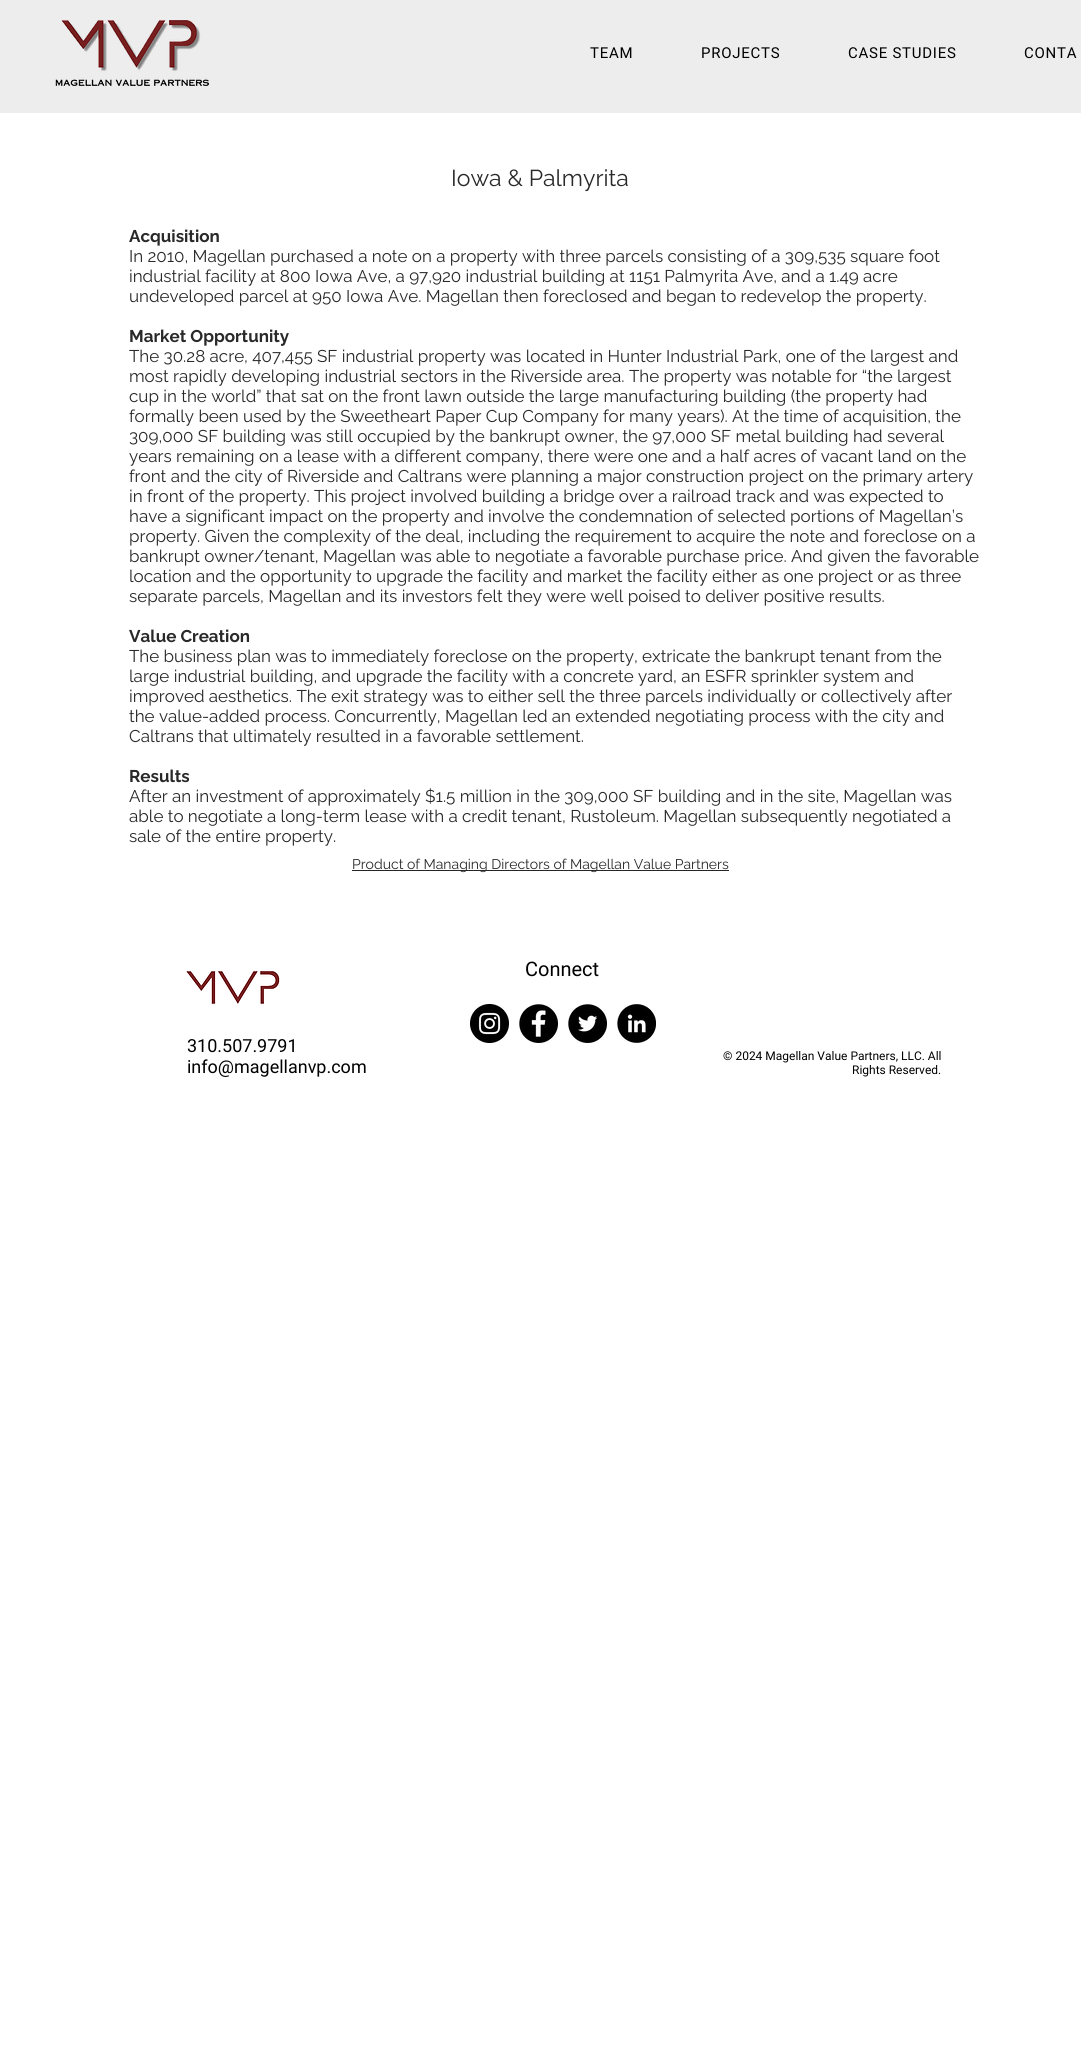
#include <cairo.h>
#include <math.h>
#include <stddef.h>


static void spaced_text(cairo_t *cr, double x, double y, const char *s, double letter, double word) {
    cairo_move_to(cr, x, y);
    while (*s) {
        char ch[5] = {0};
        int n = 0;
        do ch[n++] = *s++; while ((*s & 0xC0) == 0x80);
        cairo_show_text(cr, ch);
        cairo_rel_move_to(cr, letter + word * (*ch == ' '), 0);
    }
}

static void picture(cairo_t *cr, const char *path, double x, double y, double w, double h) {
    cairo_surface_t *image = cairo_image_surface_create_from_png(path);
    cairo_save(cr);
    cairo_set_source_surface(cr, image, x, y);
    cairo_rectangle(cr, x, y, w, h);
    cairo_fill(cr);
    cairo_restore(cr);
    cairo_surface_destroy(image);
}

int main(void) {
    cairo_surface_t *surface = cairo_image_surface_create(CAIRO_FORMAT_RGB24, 1081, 2067);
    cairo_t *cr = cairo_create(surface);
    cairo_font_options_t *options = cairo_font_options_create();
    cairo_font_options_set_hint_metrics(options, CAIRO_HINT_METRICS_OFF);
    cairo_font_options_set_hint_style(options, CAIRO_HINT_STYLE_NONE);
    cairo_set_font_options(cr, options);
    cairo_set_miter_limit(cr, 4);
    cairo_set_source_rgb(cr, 1, 1, 1);
    cairo_paint(cr);
    cairo_set_source_rgb(cr, 0.929, 0.929, 0.929);
    cairo_rectangle(cr, 0, 0, 1081, 113);
    cairo_fill(cr);
    picture(cr, "img1.png", 55, 20, 154, 67);
    cairo_select_font_face(cr, "Roboto", CAIRO_FONT_SLANT_NORMAL, CAIRO_FONT_WEIGHT_NORMAL);
    cairo_set_font_size(cr, 15);
    cairo_set_source_rgb(cr, 0, 0, 0);
    spaced_text(cr, 590, 58, "TEAM", 0.75, 0);
    spaced_text(cr, 701, 58, "PROJECTS", 0.75, 0);
    spaced_text(cr, 848, 58, "CASE STUDIES", 0.75, 0);
    spaced_text(cr, 1024, 58, "CONTA", 0.75, 0);
    cairo_select_font_face(cr, "Raleway", CAIRO_FONT_SLANT_NORMAL, CAIRO_FONT_WEIGHT_NORMAL);
    cairo_set_font_size(cr, 23);
    cairo_set_source_rgb(cr, 0.161, 0.161, 0.161);
    cairo_move_to(cr, 451, 186);
    cairo_show_text(cr, "Iowa & Palmyrita");
    cairo_select_font_face(cr, "Raleway", CAIRO_FONT_SLANT_NORMAL, CAIRO_FONT_WEIGHT_BOLD);
    cairo_set_font_size(cr, 17);
    cairo_move_to(cr, 129, 242);
    cairo_show_text(cr, "Acquisition");
    cairo_select_font_face(cr, "Raleway", CAIRO_FONT_SLANT_NORMAL, CAIRO_FONT_WEIGHT_NORMAL);
    cairo_move_to(cr, 129, 262);
    cairo_show_text(cr, "In 2010, Magellan purchased a note on a property with three parcels consisting of a 309,535 square foot");
    cairo_move_to(cr, 129, 282);
    cairo_show_text(cr, "industrial facility at 800 Iowa Ave, a 97,920 industrial building at 1151 Palmyrita Ave, and a 1.49 acre");
    cairo_move_to(cr, 129, 302);
    cairo_show_text(cr, "undeveloped parcel at 950 Iowa Ave. Magellan then foreclosed and began to redevelop the property.");
    cairo_select_font_face(cr, "Raleway", CAIRO_FONT_SLANT_NORMAL, CAIRO_FONT_WEIGHT_BOLD);
    cairo_move_to(cr, 129, 342);
    cairo_show_text(cr, "Market Opportunity");
    cairo_select_font_face(cr, "Raleway", CAIRO_FONT_SLANT_NORMAL, CAIRO_FONT_WEIGHT_NORMAL);
    cairo_move_to(cr, 129, 362);
    cairo_show_text(cr, "The 30.28 acre, 407,455 SF industrial property was located in Hunter Industrial Park, one of the largest and");
    cairo_move_to(cr, 129, 382);
    cairo_show_text(cr, "most rapidly developing industrial sectors in the Riverside area. The property was notable for “the largest");
    cairo_move_to(cr, 129, 402);
    cairo_show_text(cr, "cup in the world” that sat on the front lawn outside the large manufacturing building (the property had");
    cairo_move_to(cr, 129, 422);
    cairo_show_text(cr, "formally been used by the Sweetheart Paper Cup Company for many years). At the time of acquisition, the");
    cairo_move_to(cr, 129, 442);
    cairo_show_text(cr, "309,000 SF building was still occupied by the bankrupt owner, the 97,000 SF metal building had several");
    cairo_move_to(cr, 129, 462);
    cairo_show_text(cr, "years remaining on a lease with a different company, there were one and a half acres of vacant land on the");
    cairo_move_to(cr, 129, 482);
    cairo_show_text(cr, "front and the city of Riverside and Caltrans were planning a major construction project on the primary artery");
    cairo_move_to(cr, 129, 502);
    cairo_show_text(cr, "in front of the property. This project involved building a bridge over a railroad track and was expected to");
    cairo_move_to(cr, 129, 522);
    cairo_show_text(cr, "have a significant impact on the property and involve the condemnation of selected portions of Magellan’s");
    cairo_move_to(cr, 129, 542);
    cairo_show_text(cr, "property. Given the complexity of the deal, including the requirement to acquire the note and foreclose on a");
    cairo_move_to(cr, 129, 562);
    cairo_show_text(cr, "bankrupt owner/tenant, Magellan was able to negotiate a favorable purchase price. And given the favorable");
    cairo_move_to(cr, 129, 582);
    cairo_show_text(cr, "location and the opportunity to upgrade the facility and market the facility either as one project or as three");
    cairo_move_to(cr, 129, 602);
    cairo_show_text(cr, "separate parcels, Magellan and its investors felt they were well poised to deliver positive results.");
    cairo_select_font_face(cr, "Raleway", CAIRO_FONT_SLANT_NORMAL, CAIRO_FONT_WEIGHT_BOLD);
    cairo_move_to(cr, 129, 642);
    cairo_show_text(cr, "Value Creation");
    cairo_select_font_face(cr, "Raleway", CAIRO_FONT_SLANT_NORMAL, CAIRO_FONT_WEIGHT_NORMAL);
    cairo_move_to(cr, 129, 662);
    cairo_show_text(cr, "The business plan was to immediately foreclose on the property, extricate the bankrupt tenant from the");
    cairo_move_to(cr, 129, 682);
    cairo_show_text(cr, "large industrial building, and upgrade the facility with a concrete yard, an ESFR sprinkler system and");
    cairo_move_to(cr, 129, 702);
    cairo_show_text(cr, "improved aesthetics. The exit strategy was to either sell the three parcels individually or collectively after");
    cairo_move_to(cr, 129, 722);
    cairo_show_text(cr, "the value-added process. Concurrently, Magellan led an extended negotiating process with the city and");
    cairo_move_to(cr, 129, 742);
    cairo_show_text(cr, "Caltrans that ultimately resulted in a favorable settlement.");
    cairo_select_font_face(cr, "Raleway", CAIRO_FONT_SLANT_NORMAL, CAIRO_FONT_WEIGHT_BOLD);
    cairo_move_to(cr, 129, 782);
    cairo_show_text(cr, "Results");
    cairo_select_font_face(cr, "Raleway", CAIRO_FONT_SLANT_NORMAL, CAIRO_FONT_WEIGHT_NORMAL);
    cairo_move_to(cr, 129, 802);
    cairo_show_text(cr, "After an investment of approximately $1.5 million in the 309,000 SF building and in the site, Magellan was");
    cairo_move_to(cr, 129, 822);
    cairo_show_text(cr, "able to negotiate a long-term lease with a credit tenant, Rustoleum. Magellan subsequently negotiated a");
    cairo_move_to(cr, 129, 842);
    cairo_show_text(cr, "sale of the entire property.");
    cairo_set_source_rgb(cr, 0.145, 0.145, 0.145);
    cairo_rectangle(cr, 352, 870, 377, 1);
    cairo_fill(cr);
    cairo_set_font_size(cr, 14);
    cairo_set_source_rgb(cr, 0.161, 0.161, 0.161);
    cairo_move_to(cr, 352, 869);
    cairo_show_text(cr, "Product of Managing Directors of Magellan Value Partners");
    cairo_select_font_face(cr, "Roboto", CAIRO_FONT_SLANT_NORMAL, CAIRO_FONT_WEIGHT_NORMAL);
    cairo_set_font_size(cr, 20);
    cairo_set_source_rgb(cr, 0, 0, 0);
    cairo_move_to(cr, 525, 976);
    cairo_show_text(cr, "Connect");
    picture(cr, "img2.png", 186, 971, 94, 35);
    picture(cr, "img3.png", 470, 1004, 39, 39);
    picture(cr, "img4.png", 519, 1004, 39, 39);
    picture(cr, "img5.png", 568, 1004, 39, 39);
    picture(cr, "img6.png", 617, 1004, 39, 39);
    cairo_set_font_size(cr, 18);
    cairo_move_to(cr, 187, 1052);
    cairo_show_text(cr, "310.507.9791");
    cairo_move_to(cr, 187, 1073);
    cairo_show_text(cr, "info@magellanvp.com");
    cairo_set_font_size(cr, 12);
    cairo_move_to(cr, 723, 1060);
    cairo_show_text(cr, "© 2024 Magellan Value Partners, LLC. All");
    cairo_move_to(cr, 852, 1074);
    cairo_show_text(cr, "Rights Reserved.");
    cairo_surface_write_to_png(surface, "page.png");
    cairo_font_options_destroy(options);
    cairo_destroy(cr);
    cairo_surface_destroy(surface);
    return 0;
}
